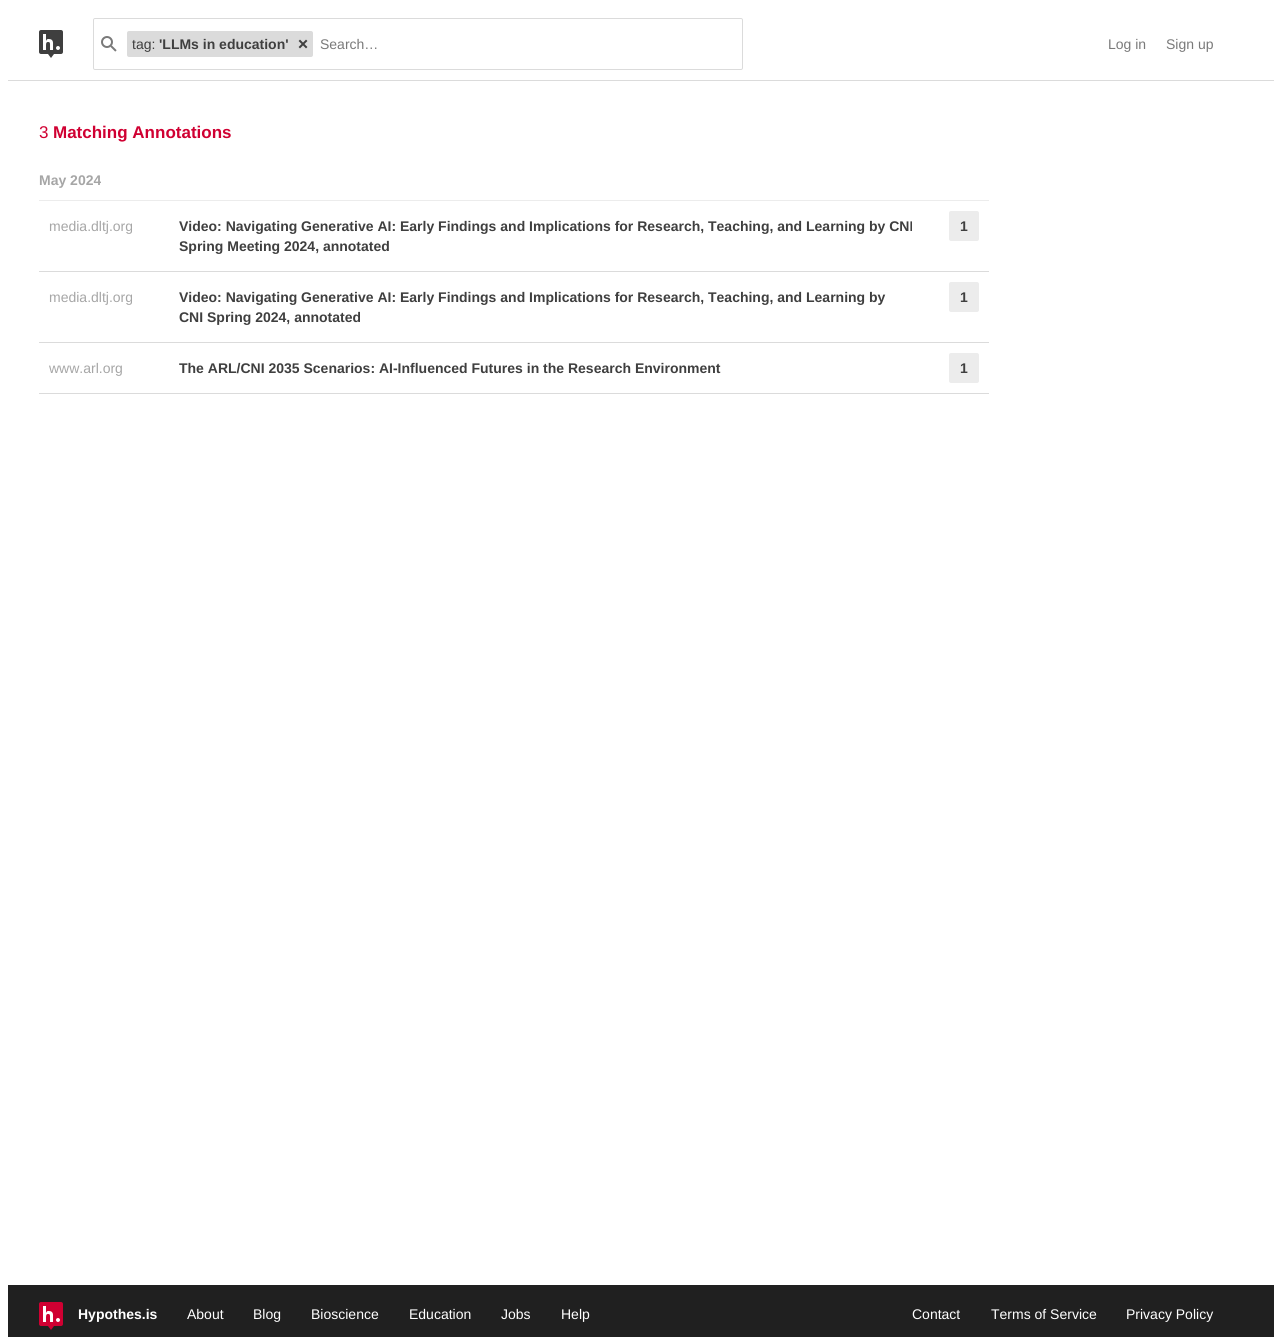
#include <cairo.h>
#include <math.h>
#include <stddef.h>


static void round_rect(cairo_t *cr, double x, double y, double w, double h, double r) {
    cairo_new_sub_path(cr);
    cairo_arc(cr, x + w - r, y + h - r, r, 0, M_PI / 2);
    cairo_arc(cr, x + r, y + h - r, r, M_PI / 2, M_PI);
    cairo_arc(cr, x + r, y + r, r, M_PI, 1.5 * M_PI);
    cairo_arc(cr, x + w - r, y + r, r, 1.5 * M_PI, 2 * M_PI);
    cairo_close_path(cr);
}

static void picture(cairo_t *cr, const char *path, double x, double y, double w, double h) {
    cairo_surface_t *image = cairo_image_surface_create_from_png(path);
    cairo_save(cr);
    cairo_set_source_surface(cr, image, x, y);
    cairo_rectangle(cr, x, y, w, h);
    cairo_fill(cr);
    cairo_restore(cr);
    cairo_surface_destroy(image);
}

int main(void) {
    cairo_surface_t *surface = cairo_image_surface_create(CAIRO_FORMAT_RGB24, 1282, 1337);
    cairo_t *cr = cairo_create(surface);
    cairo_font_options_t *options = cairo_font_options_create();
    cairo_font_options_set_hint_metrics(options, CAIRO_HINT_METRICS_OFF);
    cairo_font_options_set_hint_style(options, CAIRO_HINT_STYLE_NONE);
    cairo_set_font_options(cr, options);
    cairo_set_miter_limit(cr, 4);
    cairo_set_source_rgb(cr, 1, 1, 1);
    cairo_paint(cr);
    cairo_set_source_rgb(cr, 0.859, 0.859, 0.859);
    cairo_rectangle(cr, 8, 80, 1266, 1);
    cairo_fill(cr);
    picture(cr, "img1.png", 39, 30, 24, 28);
    round_rect(cr, 93.5, 18.5, 649, 51, 1.5);
    cairo_set_line_width(cr, 1);
    cairo_stroke(cr);
    picture(cr, "img2.png", 101, 36, 16, 16);
    round_rect(cr, 127, 31, 186, 26, 2);
    cairo_fill(cr);
    cairo_select_font_face(cr, "Liberation Sans", CAIRO_FONT_SLANT_NORMAL, CAIRO_FONT_WEIGHT_NORMAL);
    cairo_set_font_size(cr, 14);
    cairo_set_source_rgb(cr, 0.247, 0.247, 0.247);
    cairo_move_to(cr, 132, 49);
    cairo_show_text(cr, "tag:");
    cairo_select_font_face(cr, "Liberation Sans", CAIRO_FONT_SLANT_NORMAL, CAIRO_FONT_WEIGHT_BOLD);
    cairo_move_to(cr, 159, 49);
    cairo_show_text(cr, "'LLMs in education'");
    picture(cr, "img3.png", 298, 39, 10, 10);
    cairo_select_font_face(cr, "Liberation Sans", CAIRO_FONT_SLANT_NORMAL, CAIRO_FONT_WEIGHT_NORMAL);
    cairo_set_source_rgb(cr, 0.478, 0.478, 0.478);
    cairo_move_to(cr, 320, 49);
    cairo_show_text(cr, "Search…");
    cairo_move_to(cr, 1108, 49);
    cairo_show_text(cr, "Log in");
    cairo_move_to(cr, 1166, 49);
    cairo_show_text(cr, "Sign up");
    cairo_set_font_size(cr, 17);
    cairo_set_source_rgb(cr, 0.816, 0, 0.196);
    cairo_move_to(cr, 39, 138);
    cairo_show_text(cr, "3");
    cairo_select_font_face(cr, "Liberation Sans", CAIRO_FONT_SLANT_NORMAL, CAIRO_FONT_WEIGHT_BOLD);
    cairo_move_to(cr, 53, 138);
    cairo_show_text(cr, "Matching Annotations");
    cairo_set_source_rgb(cr, 0.925, 0.925, 0.925);
    cairo_rectangle(cr, 39, 200, 950, 1);
    cairo_fill(cr);
    cairo_set_font_size(cr, 14);
    cairo_set_source_rgb(cr, 0.651, 0.651, 0.651);
    cairo_move_to(cr, 39, 185);
    cairo_show_text(cr, "May 2024");
    cairo_set_source_rgb(cr, 0.859, 0.859, 0.859);
    cairo_rectangle(cr, 39, 271, 950, 1);
    cairo_fill(cr);
    cairo_select_font_face(cr, "Liberation Sans", CAIRO_FONT_SLANT_NORMAL, CAIRO_FONT_WEIGHT_NORMAL);
    cairo_set_source_rgb(cr, 0.651, 0.651, 0.651);
    cairo_move_to(cr, 49, 231);
    cairo_show_text(cr, "media.dltj.org");
    cairo_select_font_face(cr, "Liberation Sans", CAIRO_FONT_SLANT_NORMAL, CAIRO_FONT_WEIGHT_BOLD);
    cairo_set_source_rgb(cr, 0.247, 0.247, 0.247);
    cairo_move_to(cr, 179, 231);
    cairo_show_text(cr, "Video: Navigating Generative AI: Early Findings and Implications for Research, Teaching, and Learning by CNI");
    cairo_move_to(cr, 179, 251);
    cairo_show_text(cr, "Spring Meeting 2024, annotated");
    cairo_set_source_rgb(cr, 0.925, 0.925, 0.925);
    round_rect(cr, 949, 211, 30, 30, 2);
    cairo_fill(cr);
    cairo_set_source_rgb(cr, 0.247, 0.247, 0.247);
    cairo_move_to(cr, 960, 231);
    cairo_show_text(cr, "1");
    cairo_set_source_rgb(cr, 0.859, 0.859, 0.859);
    cairo_rectangle(cr, 39, 342, 950, 1);
    cairo_fill(cr);
    cairo_select_font_face(cr, "Liberation Sans", CAIRO_FONT_SLANT_NORMAL, CAIRO_FONT_WEIGHT_NORMAL);
    cairo_set_source_rgb(cr, 0.651, 0.651, 0.651);
    cairo_move_to(cr, 49, 302);
    cairo_show_text(cr, "media.dltj.org");
    cairo_select_font_face(cr, "Liberation Sans", CAIRO_FONT_SLANT_NORMAL, CAIRO_FONT_WEIGHT_BOLD);
    cairo_set_source_rgb(cr, 0.247, 0.247, 0.247);
    cairo_move_to(cr, 179, 302);
    cairo_show_text(cr, "Video: Navigating Generative AI: Early Findings and Implications for Research, Teaching, and Learning by");
    cairo_move_to(cr, 179, 322);
    cairo_show_text(cr, "CNI Spring 2024, annotated");
    cairo_set_source_rgb(cr, 0.925, 0.925, 0.925);
    round_rect(cr, 949, 282, 30, 30, 2);
    cairo_fill(cr);
    cairo_set_source_rgb(cr, 0.247, 0.247, 0.247);
    cairo_move_to(cr, 960, 302);
    cairo_show_text(cr, "1");
    cairo_set_source_rgb(cr, 0.859, 0.859, 0.859);
    cairo_rectangle(cr, 39, 393, 950, 1);
    cairo_fill(cr);
    cairo_select_font_face(cr, "Liberation Sans", CAIRO_FONT_SLANT_NORMAL, CAIRO_FONT_WEIGHT_NORMAL);
    cairo_set_source_rgb(cr, 0.651, 0.651, 0.651);
    cairo_move_to(cr, 49, 373);
    cairo_show_text(cr, "www.arl.org");
    cairo_select_font_face(cr, "Liberation Sans", CAIRO_FONT_SLANT_NORMAL, CAIRO_FONT_WEIGHT_BOLD);
    cairo_set_source_rgb(cr, 0.247, 0.247, 0.247);
    cairo_move_to(cr, 179, 373);
    cairo_show_text(cr, "The ARL/CNI 2035 Scenarios: AI-Influenced Futures in the Research Environment");
    cairo_set_source_rgb(cr, 0.925, 0.925, 0.925);
    round_rect(cr, 949, 353, 30, 30, 2);
    cairo_fill(cr);
    cairo_set_source_rgb(cr, 0.247, 0.247, 0.247);
    cairo_move_to(cr, 960, 373);
    cairo_show_text(cr, "1");
    cairo_set_source_rgb(cr, 0.125, 0.125, 0.125);
    cairo_rectangle(cr, 8, 1285, 1266, 52);
    cairo_fill(cr);
    picture(cr, "img4.png", 39, 1302, 24, 28);
    cairo_set_source_rgb(cr, 1, 1, 1);
    cairo_move_to(cr, 78, 1319);
    cairo_show_text(cr, "Hypothes.is");
    cairo_select_font_face(cr, "Liberation Sans", CAIRO_FONT_SLANT_NORMAL, CAIRO_FONT_WEIGHT_NORMAL);
    cairo_move_to(cr, 187, 1319);
    cairo_show_text(cr, "About");
    cairo_move_to(cr, 253, 1319);
    cairo_show_text(cr, "Blog");
    cairo_move_to(cr, 311, 1319);
    cairo_show_text(cr, "Bioscience");
    cairo_move_to(cr, 409, 1319);
    cairo_show_text(cr, "Education");
    cairo_move_to(cr, 501, 1319);
    cairo_show_text(cr, "Jobs");
    cairo_move_to(cr, 561, 1319);
    cairo_show_text(cr, "Help");
    cairo_move_to(cr, 912, 1319);
    cairo_show_text(cr, "Contact");
    cairo_move_to(cr, 991, 1319);
    cairo_show_text(cr, "Terms of Service");
    cairo_move_to(cr, 1126, 1319);
    cairo_show_text(cr, "Privacy Policy");
    cairo_surface_write_to_png(surface, "page.png");
    cairo_font_options_destroy(options);
    cairo_destroy(cr);
    cairo_surface_destroy(surface);
    return 0;
}
